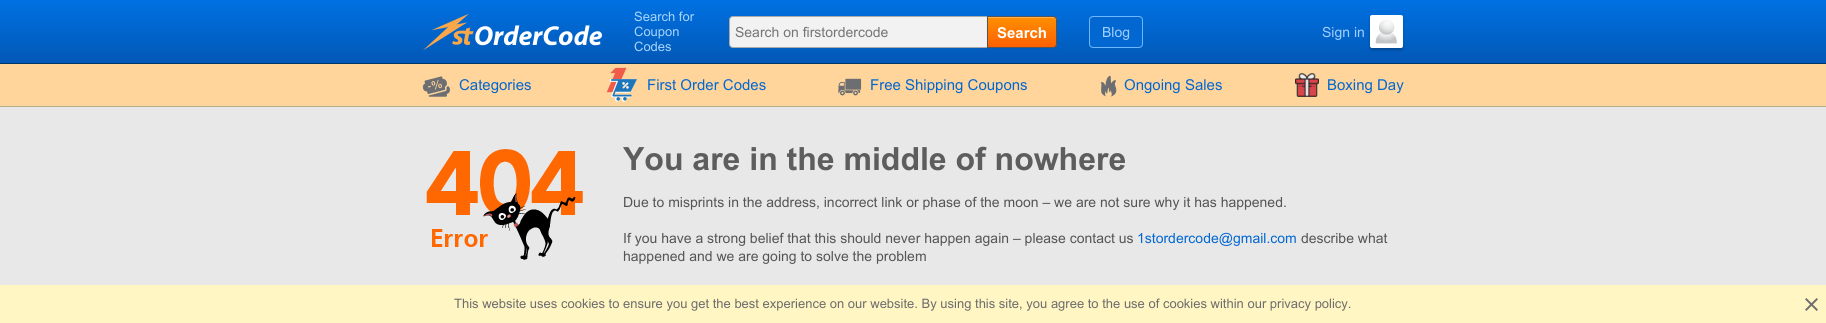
#include <cairo.h>
#include <math.h>
#include <stddef.h>


static void round_rect(cairo_t *cr, double x, double y, double w, double h, double r) {
    cairo_new_sub_path(cr);
    cairo_arc(cr, x + w - r, y + h - r, r, 0, M_PI / 2);
    cairo_arc(cr, x + r, y + h - r, r, M_PI / 2, M_PI);
    cairo_arc(cr, x + r, y + r, r, M_PI, 1.5 * M_PI);
    cairo_arc(cr, x + w - r, y + r, r, 1.5 * M_PI, 2 * M_PI);
    cairo_close_path(cr);
}

static void shadow(cairo_t *cr, double x, double y, double w, double h, double r, double blur, double alpha) {
    cairo_push_group_with_content(cr, CAIRO_CONTENT_ALPHA);
    cairo_set_operator(cr, CAIRO_OPERATOR_SOURCE);
    for (int i = 15; i >= -15 && fmin(w, h) + blur * i / 3 > 0; i -= 2) {
        double e = blur * i / 6;
        cairo_set_source_rgba(cr, 0, 0, 0, alpha * erfc((i - 1) / 8.5) / 2);
        round_rect(cr, x - e, y - e, w + 2 * e, h + 2 * e, fmax(0, fmin(r + e + blur * .6, fmin(w, h) / 2 + e)));
        cairo_fill(cr);
    }
    cairo_pattern_t *soft = cairo_pop_group(cr);
    cairo_mask(cr, soft);
    cairo_pattern_destroy(soft);
}

static void picture(cairo_t *cr, const char *path, double x, double y, double w, double h) {
    cairo_surface_t *image = cairo_image_surface_create_from_png(path);
    cairo_save(cr);
    cairo_set_source_surface(cr, image, x, y);
    cairo_rectangle(cr, x, y, w, h);
    cairo_fill(cr);
    cairo_restore(cr);
    cairo_surface_destroy(image);
}

int main(void) {
    cairo_surface_t *surface = cairo_image_surface_create(CAIRO_FORMAT_RGB24, 1826, 323);
    cairo_t *cr = cairo_create(surface);
    cairo_font_options_t *options = cairo_font_options_create();
    cairo_font_options_set_hint_metrics(options, CAIRO_HINT_METRICS_OFF);
    cairo_font_options_set_hint_style(options, CAIRO_HINT_STYLE_NONE);
    cairo_set_font_options(cr, options);
    cairo_set_miter_limit(cr, 4);
    cairo_pattern_t *gradient;
    cairo_set_source_rgb(cr, 0.91, 0.91, 0.91);
    cairo_paint(cr);
    gradient = cairo_pattern_create_linear(913, 63, 913, 0);
    cairo_pattern_add_color_stop_rgba(gradient, 0, 0.008, 0.345, 0.714, 1);
    cairo_pattern_add_color_stop_rgba(gradient, 1, 0, 0.443, 0.886, 1);
    cairo_set_source(cr, gradient);
    cairo_pattern_destroy(gradient);
    cairo_rectangle(cr, 0, 0, 1826, 63);
    cairo_fill(cr);
    cairo_set_source_rgb(cr, 0.004, 0.212, 0.424);
    cairo_rectangle(cr, 0, 63, 1826, 1);
    cairo_fill(cr);
    picture(cr, "img1.png", 423, 13, 179, 38);
    cairo_select_font_face(cr, "Arial", CAIRO_FONT_SLANT_NORMAL, CAIRO_FONT_WEIGHT_NORMAL);
    cairo_set_font_size(cr, 13);
    cairo_set_source_rgb(cr, 0.659, 0.835, 0.988);
    cairo_move_to(cr, 634, 21);
    cairo_show_text(cr, "Search for");
    cairo_move_to(cr, 634, 36);
    cairo_show_text(cr, "Coupon");
    cairo_move_to(cr, 634, 51);
    cairo_show_text(cr, "Codes");
    cairo_set_source_rgb(cr, 0.949, 0.949, 0.949);
    cairo_new_path(cr);
    cairo_move_to(cr, 733, 16.5);
    cairo_line_to(cr, 988.5, 16.5);
    cairo_line_to(cr, 988.5, 47.5);
    cairo_line_to(cr, 733, 47.5);
    cairo_curve_to(cr, 731, 47.5, 729.5, 46, 729.5, 44);
    cairo_line_to(cr, 729.5, 20);
    cairo_curve_to(cr, 729.5, 18, 731, 16.5, 733, 16.5);
    cairo_close_path(cr);
    cairo_fill_preserve(cr);
    cairo_set_source_rgb(cr, 0.667, 0.667, 0.667);
    cairo_set_line_width(cr, 1);
    cairo_stroke(cr);
    cairo_set_font_size(cr, 14);
    cairo_set_source_rgb(cr, 0.459, 0.459, 0.459);
    cairo_move_to(cr, 735, 37);
    cairo_show_text(cr, "Search on firstordercode");
    cairo_set_source_rgb(cr, 0, 0, 0);
    shadow(cr, 987, 17, 70, 32, 4, 1, 0.05);
    cairo_save(cr);
    cairo_new_path(cr);
    cairo_move_to(cr, 987, 16);
    cairo_line_to(cr, 1053, 16);
    cairo_curve_to(cr, 1055, 16, 1057, 18, 1057, 20);
    cairo_line_to(cr, 1057, 44);
    cairo_curve_to(cr, 1057, 46, 1055, 48, 1053, 48);
    cairo_line_to(cr, 987, 48);
    cairo_close_path(cr);
    cairo_clip(cr);
    gradient = cairo_pattern_create_linear(1022, 47, 1022, 17);
    cairo_pattern_add_color_stop_rgba(gradient, 0, 1, 0.376, 0, 1);
    cairo_pattern_add_color_stop_rgba(gradient, 1, 1, 0.565, 0, 1);
    cairo_set_source(cr, gradient);
    cairo_pattern_destroy(gradient);
    cairo_rectangle(cr, 988, 17, 69, 30);
    cairo_fill(cr);
    cairo_restore(cr);
    cairo_set_source_rgb(cr, 1, 0.694, 0.302);
    cairo_new_path(cr);
    cairo_move_to(cr, 988, 18);
    cairo_line_to(cr, 1053, 18);
    cairo_curve_to(cr, 1055, 18, 1056, 19, 1056, 21);
    cairo_line_to(cr, 1056, 20);
    cairo_curve_to(cr, 1056, 18, 1055, 17, 1053, 17);
    cairo_line_to(cr, 988, 17);
    cairo_close_path(cr);
    cairo_fill(cr);
    cairo_new_path(cr);
    cairo_move_to(cr, 987.5, 16.5);
    cairo_line_to(cr, 1053, 16.5);
    cairo_curve_to(cr, 1055, 16.5, 1056.5, 18, 1056.5, 20);
    cairo_line_to(cr, 1056.5, 44);
    cairo_curve_to(cr, 1056.5, 46, 1055, 47.5, 1053, 47.5);
    cairo_line_to(cr, 987.5, 47.5);
    cairo_close_path(cr);
    cairo_set_source_rgb(cr, 0.333, 0.333, 0.333);
    cairo_stroke(cr);
    cairo_select_font_face(cr, "Arial", CAIRO_FONT_SLANT_NORMAL, CAIRO_FONT_WEIGHT_BOLD);
    cairo_set_font_size(cr, 15);
    cairo_set_source_rgb(cr, 1, 1, 1);
    cairo_move_to(cr, 997, 38);
    cairo_show_text(cr, "Search");
    cairo_set_source_rgb(cr, 0.008, 0.404, 0.82);
    round_rect(cr, 1089.5, 16.5, 53, 31, 3.5);
    cairo_fill_preserve(cr);
    cairo_set_source_rgb(cr, 0.431, 0.714, 0.996);
    cairo_stroke(cr);
    cairo_select_font_face(cr, "Arial", CAIRO_FONT_SLANT_NORMAL, CAIRO_FONT_WEIGHT_NORMAL);
    cairo_set_font_size(cr, 14);
    cairo_set_source_rgb(cr, 0.631, 0.812, 0.996);
    cairo_move_to(cr, 1102, 37);
    cairo_show_text(cr, "Blog");
    cairo_move_to(cr, 1322, 37);
    cairo_show_text(cr, "Sign in");
    cairo_set_source_rgb(cr, 0, 0, 0);
    shadow(cr, 1370, 17, 33, 33, 2, 1.5, 0.25);
    round_rect(cr, 1371, 16, 31, 31, 1);
    cairo_set_source_rgb(cr, 1, 1, 1);
    cairo_set_line_width(cr, 2);
    cairo_stroke(cr);
    picture(cr, "img2.png", 1372, 17, 29, 29);
    cairo_set_source_rgb(cr, 1, 0.835, 0.612);
    cairo_rectangle(cr, 0, 64, 1826, 42);
    cairo_fill(cr);
    cairo_set_source_rgb(cr, 0.722, 0.678, 0.537);
    cairo_rectangle(cr, 0, 106, 1826, 1);
    cairo_fill(cr);
    picture(cr, "img3.png", 422, 76, 28, 21);
    cairo_set_font_size(cr, 15);
    cairo_set_source_rgb(cr, 0.008, 0.404, 0.82);
    cairo_move_to(cr, 459, 90);
    cairo_show_text(cr, "Categories");
    picture(cr, "img4.png", 606, 67, 31, 35);
    cairo_move_to(cr, 647, 90);
    cairo_show_text(cr, "First Order Codes");
    picture(cr, "img5.png", 838, 78, 24, 18);
    cairo_move_to(cr, 870, 90);
    cairo_show_text(cr, "Free Shipping Coupons");
    picture(cr, "img6.png", 1101, 75, 16, 22);
    cairo_move_to(cr, 1124, 90);
    cairo_show_text(cr, "Ongoing Sales");
    picture(cr, "img7.png", 1295, 73, 24, 24);
    cairo_move_to(cr, 1327, 90);
    cairo_show_text(cr, "Boxing Day");
    picture(cr, "img8.png", 426, 149, 157, 111);
    cairo_select_font_face(cr, "Arial", CAIRO_FONT_SLANT_NORMAL, CAIRO_FONT_WEIGHT_BOLD);
    cairo_set_font_size(cr, 32);
    cairo_set_source_rgb(cr, 0.365, 0.365, 0.365);
    cairo_move_to(cr, 623, 170);
    cairo_show_text(cr, "You are in the middle of nowhere");
    cairo_select_font_face(cr, "Arial", CAIRO_FONT_SLANT_NORMAL, CAIRO_FONT_WEIGHT_NORMAL);
    cairo_set_font_size(cr, 14);
    cairo_set_source_rgb(cr, 0.333, 0.333, 0.333);
    cairo_move_to(cr, 623, 207);
    cairo_show_text(cr, "Due to misprints in the address, incorrect link or phase of the moon – we are not sure why it has happened.");
    cairo_move_to(cr, 623, 243);
    cairo_show_text(cr, "If you have a strong belief that this should never happen again – please contact us");
    cairo_set_source_rgb(cr, 0.008, 0.404, 0.82);
    cairo_move_to(cr, 1137, 243);
    cairo_show_text(cr, "1stordercode@gmail.com");
    cairo_set_source_rgb(cr, 0.333, 0.333, 0.333);
    cairo_move_to(cr, 1301, 243);
    cairo_show_text(cr, "describe what");
    cairo_move_to(cr, 623, 261);
    cairo_show_text(cr, "happened and we are going to solve the problem");
    cairo_set_source_rgb(cr, 1, 0.961, 0.765);
    cairo_rectangle(cr, 0, 285, 1826, 38);
    cairo_fill(cr);
    cairo_set_font_size(cr, 13);
    cairo_set_source_rgb(cr, 0.427, 0.427, 0.427);
    cairo_move_to(cr, 454, 308);
    cairo_show_text(cr, "This website uses cookies to ensure you get the best experience on our website. By using this site, you agree to the use of cookies within our privacy policy.");
    picture(cr, "img9.png", 1805, 298, 13, 13);
    cairo_surface_write_to_png(surface, "page.png");
    cairo_font_options_destroy(options);
    cairo_destroy(cr);
    cairo_surface_destroy(surface);
    return 0;
}
